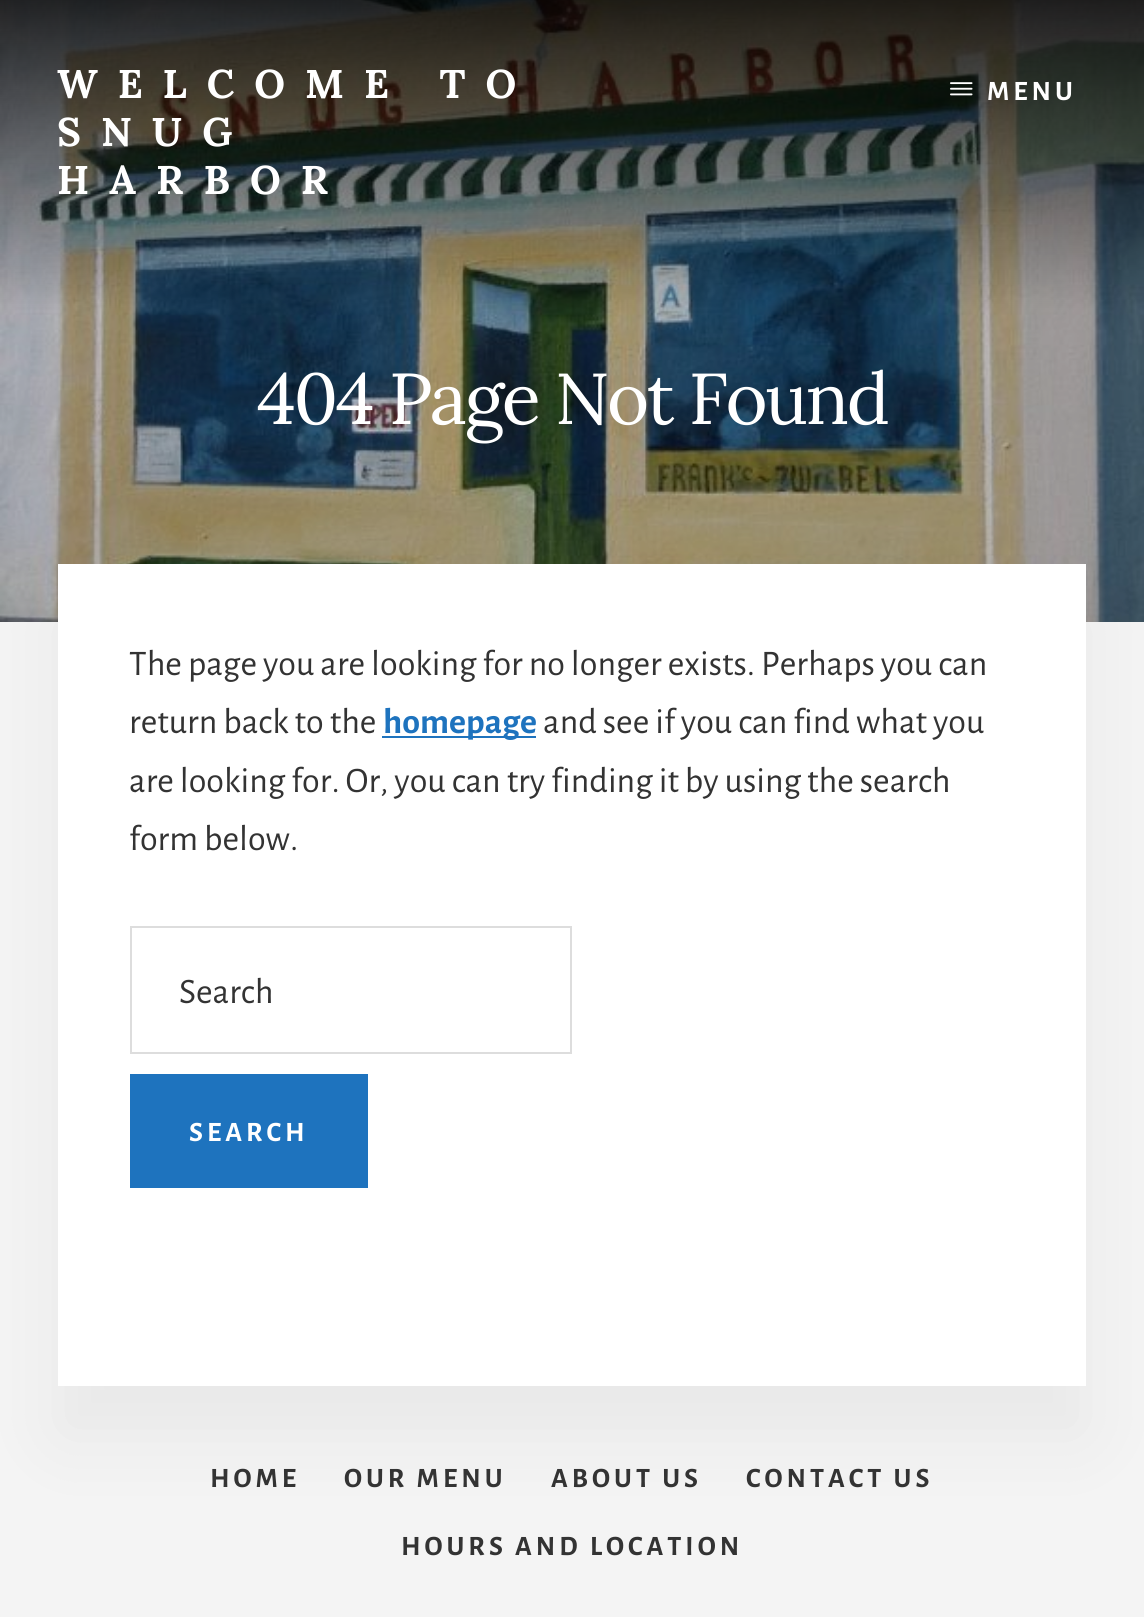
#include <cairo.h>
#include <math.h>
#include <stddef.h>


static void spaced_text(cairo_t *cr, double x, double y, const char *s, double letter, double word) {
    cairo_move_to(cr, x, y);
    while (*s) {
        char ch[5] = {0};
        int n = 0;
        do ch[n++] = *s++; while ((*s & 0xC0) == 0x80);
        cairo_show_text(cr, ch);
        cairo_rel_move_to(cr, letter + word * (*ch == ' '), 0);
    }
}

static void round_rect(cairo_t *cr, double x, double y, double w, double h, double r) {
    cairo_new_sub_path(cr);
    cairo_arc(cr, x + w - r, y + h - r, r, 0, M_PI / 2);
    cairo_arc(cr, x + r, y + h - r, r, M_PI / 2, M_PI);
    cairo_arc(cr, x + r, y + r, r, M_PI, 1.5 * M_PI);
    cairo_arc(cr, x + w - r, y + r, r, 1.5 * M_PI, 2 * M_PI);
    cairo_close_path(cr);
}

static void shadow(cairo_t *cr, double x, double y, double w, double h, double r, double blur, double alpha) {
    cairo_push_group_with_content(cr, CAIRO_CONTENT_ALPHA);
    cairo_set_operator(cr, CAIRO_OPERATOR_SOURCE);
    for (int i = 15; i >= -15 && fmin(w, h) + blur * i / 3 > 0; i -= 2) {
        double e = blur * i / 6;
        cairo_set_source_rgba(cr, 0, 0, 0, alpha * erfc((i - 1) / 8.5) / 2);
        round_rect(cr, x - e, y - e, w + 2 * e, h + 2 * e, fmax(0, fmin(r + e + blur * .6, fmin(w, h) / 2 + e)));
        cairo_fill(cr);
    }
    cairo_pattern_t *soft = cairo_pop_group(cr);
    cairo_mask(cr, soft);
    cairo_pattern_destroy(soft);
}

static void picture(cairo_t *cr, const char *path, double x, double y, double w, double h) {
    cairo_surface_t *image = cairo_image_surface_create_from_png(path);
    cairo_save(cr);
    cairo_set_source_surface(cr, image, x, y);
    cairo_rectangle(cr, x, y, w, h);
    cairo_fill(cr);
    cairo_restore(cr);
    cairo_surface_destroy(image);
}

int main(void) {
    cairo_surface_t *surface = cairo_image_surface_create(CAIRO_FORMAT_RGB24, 1144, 1617);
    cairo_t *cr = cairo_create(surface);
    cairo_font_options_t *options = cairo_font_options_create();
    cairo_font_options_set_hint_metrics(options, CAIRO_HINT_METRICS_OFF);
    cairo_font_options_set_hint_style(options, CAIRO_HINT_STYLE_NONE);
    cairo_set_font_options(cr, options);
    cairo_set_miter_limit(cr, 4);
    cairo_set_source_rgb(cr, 0.957, 0.957, 0.957);
    cairo_paint(cr);
    picture(cr, "img1.png", 0, 0, 1144, 622);
    cairo_select_font_face(cr, "Lora", CAIRO_FONT_SLANT_NORMAL, CAIRO_FONT_WEIGHT_BOLD);
    cairo_set_font_size(cr, 40);
    cairo_set_source_rgb(cr, 1, 1, 1);
    spaced_text(cr, 57, 98, "WELCOME TO", 20, 0);
    spaced_text(cr, 57, 146, "SNUG", 20, 0);
    spaced_text(cr, 57, 194, "HARBOR", 20, 0);
    picture(cr, "img2.png", 950, 82, 23, 14);
    cairo_select_font_face(cr, "Alegreya Sans", CAIRO_FONT_SLANT_NORMAL, CAIRO_FONT_WEIGHT_BOLD);
    cairo_set_font_size(cr, 28);
    spaced_text(cr, 987, 100, "MENU", 4, 0);
    cairo_select_font_face(cr, "Lora", CAIRO_FONT_SLANT_NORMAL, CAIRO_FONT_WEIGHT_NORMAL);
    cairo_set_font_size(cr, 72);
    spaced_text(cr, 257, 424, "404 Page Not Found", -2.5, 0);
    cairo_set_source_rgb(cr, 0, 0, 0);
    shadow(cr, 58, 614, 1028, 822, 0, 40, 0.05);
    cairo_set_source_rgb(cr, 1, 1, 1);
    cairo_rectangle(cr, 58, 564, 1028, 822);
    cairo_fill(cr);
    cairo_select_font_face(cr, "Alegreya Sans", CAIRO_FONT_SLANT_NORMAL, CAIRO_FONT_WEIGHT_NORMAL);
    cairo_set_font_size(cr, 36);
    cairo_set_source_rgb(cr, 0.2, 0.2, 0.2);
    cairo_move_to(cr, 129, 675);
    cairo_show_text(cr, "The page you are looking for no longer exists. Perhaps you can");
    cairo_move_to(cr, 129, 733);
    cairo_show_text(cr, "return back to the");
    cairo_set_source_rgb(cr, 0.118, 0.451, 0.745);
    cairo_rectangle(cr, 382, 736, 154, 2);
    cairo_fill(cr);
    cairo_select_font_face(cr, "Alegreya Sans", CAIRO_FONT_SLANT_NORMAL, CAIRO_FONT_WEIGHT_BOLD);
    cairo_move_to(cr, 383, 733);
    cairo_show_text(cr, "homepage");
    cairo_select_font_face(cr, "Alegreya Sans", CAIRO_FONT_SLANT_NORMAL, CAIRO_FONT_WEIGHT_NORMAL);
    cairo_set_source_rgb(cr, 0.2, 0.2, 0.2);
    cairo_move_to(cr, 543, 733);
    cairo_show_text(cr, "and see if you can find what you");
    cairo_move_to(cr, 129, 792);
    cairo_show_text(cr, "are looking for. Or, you can try finding it by using the search");
    cairo_move_to(cr, 129, 850);
    cairo_show_text(cr, "form below.");
    cairo_rectangle(cr, 131, 927, 440, 126);
    cairo_set_source_rgb(cr, 0.867, 0.867, 0.867);
    cairo_stroke(cr);
    cairo_set_source_rgb(cr, 0.2, 0.2, 0.2);
    cairo_move_to(cr, 179, 1003);
    cairo_show_text(cr, "Search");
    cairo_set_source_rgb(cr, 0.118, 0.451, 0.745);
    cairo_rectangle(cr, 130, 1074, 238, 114);
    cairo_fill(cr);
    cairo_select_font_face(cr, "Alegreya Sans", CAIRO_FONT_SLANT_NORMAL, CAIRO_FONT_WEIGHT_BOLD);
    cairo_set_font_size(cr, 28);
    cairo_set_source_rgb(cr, 1, 1, 1);
    spaced_text(cr, 189, 1141, "SEARCH", 4, 0);
    cairo_set_source_rgb(cr, 0.2, 0.2, 0.2);
    spaced_text(cr, 210, 1487, "HOME", 4, 0);
    spaced_text(cr, 344, 1487, "OUR MENU", 4, 0);
    spaced_text(cr, 551, 1487, "ABOUT US", 4, 0);
    spaced_text(cr, 746, 1487, "CONTACT US", 4, 0);
    spaced_text(cr, 401, 1555, "HOURS AND LOCATION", 4, 0);
    cairo_surface_write_to_png(surface, "page.png");
    cairo_font_options_destroy(options);
    cairo_destroy(cr);
    cairo_surface_destroy(surface);
    return 0;
}
